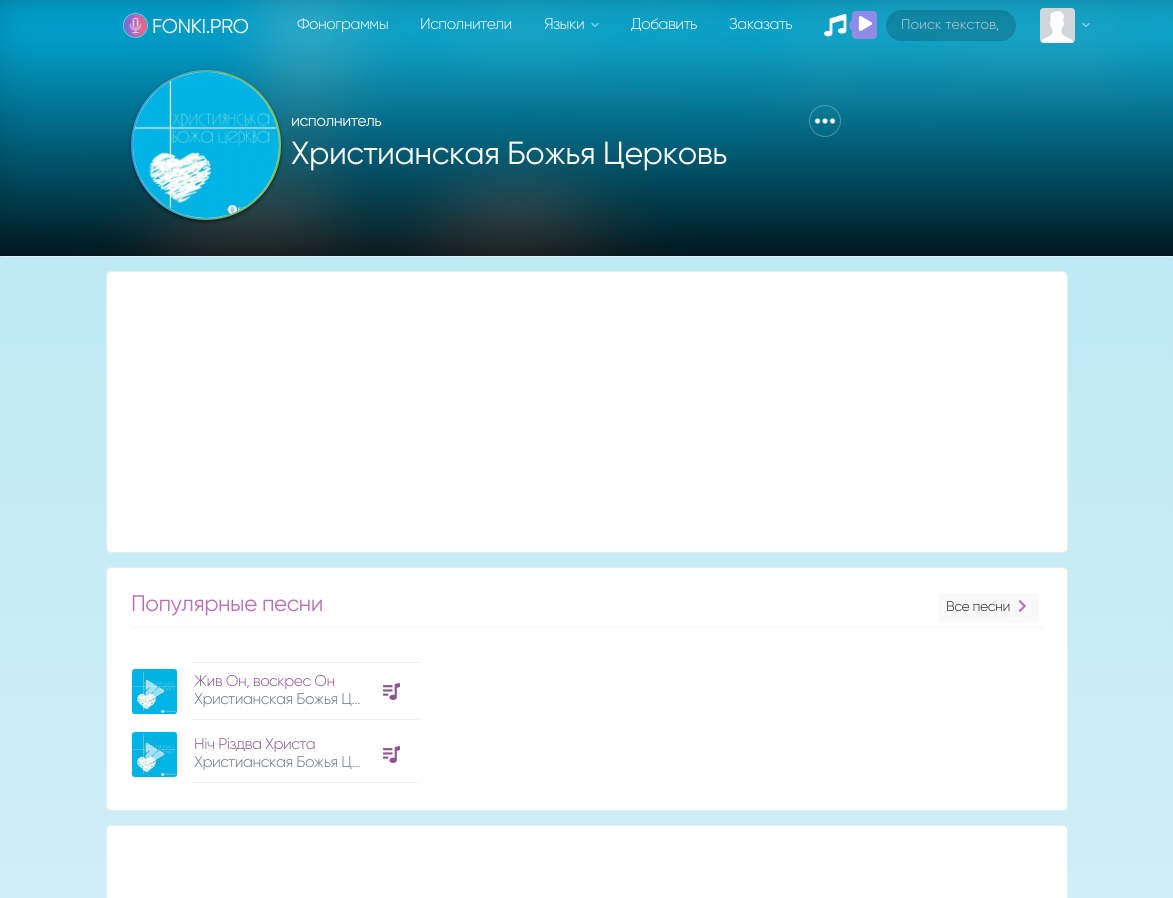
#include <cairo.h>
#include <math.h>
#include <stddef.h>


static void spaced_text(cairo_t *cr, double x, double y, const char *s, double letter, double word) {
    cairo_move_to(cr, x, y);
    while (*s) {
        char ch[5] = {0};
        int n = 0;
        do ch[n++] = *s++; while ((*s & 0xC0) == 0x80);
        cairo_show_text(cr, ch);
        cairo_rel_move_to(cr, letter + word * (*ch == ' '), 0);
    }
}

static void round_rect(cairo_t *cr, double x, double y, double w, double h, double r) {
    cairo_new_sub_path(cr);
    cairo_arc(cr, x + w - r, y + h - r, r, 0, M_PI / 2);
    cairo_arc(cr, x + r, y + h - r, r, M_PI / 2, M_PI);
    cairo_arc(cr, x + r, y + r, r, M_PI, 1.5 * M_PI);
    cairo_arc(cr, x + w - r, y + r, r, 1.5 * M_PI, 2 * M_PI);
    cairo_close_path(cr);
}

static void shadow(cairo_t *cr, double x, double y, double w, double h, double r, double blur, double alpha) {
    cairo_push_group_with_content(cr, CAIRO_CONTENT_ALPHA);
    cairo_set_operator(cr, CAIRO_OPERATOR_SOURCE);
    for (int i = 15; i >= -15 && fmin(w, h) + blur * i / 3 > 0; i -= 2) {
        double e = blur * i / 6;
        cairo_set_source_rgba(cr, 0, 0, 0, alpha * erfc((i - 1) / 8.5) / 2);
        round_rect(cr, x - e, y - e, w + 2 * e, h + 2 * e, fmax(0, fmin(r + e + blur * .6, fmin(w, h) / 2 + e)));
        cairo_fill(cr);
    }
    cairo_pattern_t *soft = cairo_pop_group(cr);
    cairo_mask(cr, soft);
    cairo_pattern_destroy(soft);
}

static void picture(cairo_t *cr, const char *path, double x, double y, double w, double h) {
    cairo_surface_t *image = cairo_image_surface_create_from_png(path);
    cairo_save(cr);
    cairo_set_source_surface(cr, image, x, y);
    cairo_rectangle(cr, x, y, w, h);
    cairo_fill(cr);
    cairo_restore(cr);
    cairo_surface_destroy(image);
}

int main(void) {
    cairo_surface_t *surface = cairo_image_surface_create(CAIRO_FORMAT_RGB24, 1173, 898);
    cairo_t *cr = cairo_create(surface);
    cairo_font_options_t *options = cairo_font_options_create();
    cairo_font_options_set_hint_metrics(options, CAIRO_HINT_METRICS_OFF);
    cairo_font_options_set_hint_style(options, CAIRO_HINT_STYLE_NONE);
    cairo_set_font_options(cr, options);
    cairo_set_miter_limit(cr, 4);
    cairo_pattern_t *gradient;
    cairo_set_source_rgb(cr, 1, 1, 1);
    cairo_paint(cr);
    picture(cr, "img1.png", 0, 256, 1173, 642);
    round_rect(cr, -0.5, -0.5, 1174, 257, 4.5);
    cairo_set_source_rgb(cr, 0.875, 0.945, 0.914);
    cairo_set_line_width(cr, 1);
    cairo_stroke(cr);
    cairo_new_path(cr);
    cairo_move_to(cr, 0, 252);
    cairo_curve_to(cr, 0, 255, 1, 257, 4, 257);
    cairo_line_to(cr, 1169, 257);
    cairo_curve_to(cr, 1172, 257, 1173, 255, 1173, 252);
    cairo_curve_to(cr, 1173, 254, 1171, 256, 1169, 256);
    cairo_line_to(cr, 4, 256);
    cairo_curve_to(cr, 2, 256, 0, 254, 0, 252);
    cairo_close_path(cr);
    cairo_fill(cr);
    cairo_set_source_rgb(cr, 0, 0, 0);
    cairo_rectangle(cr, 0, 0, 1173, 256);
    cairo_fill(cr);
    picture(cr, "img6.png", 0, 0, 1173, 256);
    cairo_arc(cr, 135.5, 25.5, 12, 0, 2 * M_PI);
    cairo_set_source_rgba(cr, 1, 1, 1, 0.46);
    cairo_stroke(cr);
    picture(cr, "img2.png", 124, 14, 23, 23);
    cairo_select_font_face(cr, "Gilroy", CAIRO_FONT_SLANT_NORMAL, CAIRO_FONT_WEIGHT_NORMAL);
    cairo_set_font_size(cr, 20);
    cairo_set_source_rgb(cr, 1, 1, 1);
    spaced_text(cr, 152, 33, "FONKI.PRO", -0.5, 0);
    cairo_select_font_face(cr, "Gilroy Light", CAIRO_FONT_SLANT_NORMAL, CAIRO_FONT_WEIGHT_NORMAL);
    cairo_set_font_size(cr, 15.5);
    spaced_text(cr, 297, 29, "Фонограммы", -0.5, 0);
    spaced_text(cr, 420, 29, "Исполнители", -0.5, 0);
    spaced_text(cr, 544, 29, "Языки", -0.5, 0);
    cairo_save(cr);
    cairo_rectangle(cr, 591, 23, 8, 4);
    cairo_clip(cr);
    cairo_new_path(cr);
    cairo_move_to(cr, 592, 23.5);
    cairo_line_to(cr, 595, 26.5);
    cairo_line_to(cr, 598, 23.5);
    cairo_set_source_rgb(cr, 0.482, 0.796, 0.875);
    cairo_set_line_width(cr, 1.5);
    cairo_set_line_cap(cr, CAIRO_LINE_CAP_ROUND);
    cairo_set_line_join(cr, CAIRO_LINE_JOIN_ROUND);
    cairo_stroke(cr);
    cairo_restore(cr);
    spaced_text(cr, 631, 29, "Добавить", -0.5, 0);
    spaced_text(cr, 729, 29, "Заказать", -0.5, 0);
    picture(cr, "img3.png", 824, 14, 23, 23);
    cairo_set_source_rgb(cr, 0.569, 0.545, 0.91);
    round_rect(cr, 852, 11, 25, 28, 4);
    cairo_fill(cr);
    cairo_new_path(cr);
    cairo_move_to(cr, 853.5, 31);
    cairo_line_to(cr, 853, 32);
    cairo_line_to(cr, 849.5, 27.5);
    cairo_line_to(cr, 849.5, 23);
    cairo_line_to(cr, 853, 18.5);
    cairo_line_to(cr, 853.5, 18.5);
    cairo_close_path(cr);
    cairo_fill(cr);
    picture(cr, "img4.png", 858, 16, 14, 15);
    cairo_set_source_rgba(cr, 0, 0, 0, 0.17);
    round_rect(cr, 886, 10, 130, 31, 15.5);
    cairo_fill(cr);
    cairo_set_font_size(cr, 14);
    cairo_set_source_rgb(cr, 0.753, 0.784, 0.816);
    cairo_move_to(cr, 901, 29);
    cairo_show_text(cr, "Поиск текстов,");
    picture(cr, "img5.png", 1040, 8, 35, 35);
    cairo_save(cr);
    cairo_rectangle(cr, 1082, 23, 8, 4);
    cairo_clip(cr);
    cairo_new_path(cr);
    cairo_move_to(cr, 1083, 23.5);
    cairo_line_to(cr, 1086, 26.5);
    cairo_line_to(cr, 1089, 23.5);
    cairo_set_source_rgb(cr, 0.498, 0.8, 0.875);
    cairo_set_line_width(cr, 1.5);
    cairo_set_line_cap(cr, CAIRO_LINE_CAP_ROUND);
    cairo_set_line_join(cr, CAIRO_LINE_JOIN_ROUND);
    cairo_stroke(cr);
    cairo_restore(cr);
    cairo_set_source_rgb(cr, 0, 0, 0);
    shadow(cr, 131, 72, 150, 150, 75, 2, 0.5);
    gradient = cairo_pattern_create_linear(131, 145, 281, 145);
    cairo_pattern_add_color_stop_rgba(gradient, 0, 0.208, 0.596, 0.859, 1);
    cairo_pattern_add_color_stop_rgba(gradient, 1, 0.514, 0.769, 0.318, 1);
    cairo_set_source(cr, gradient);
    cairo_pattern_destroy(gradient);
    cairo_arc(cr, 206, 145, 75, 0, 2 * M_PI);
    cairo_fill(cr);
    cairo_set_source_rgb(cr, 1, 1, 1);
    cairo_arc(cr, 206, 145, 73, 0, 2 * M_PI);
    cairo_fill(cr);
    picture(cr, "img7.png", 133, 72, 146, 146);
    cairo_select_font_face(cr, "Gilroy", CAIRO_FONT_SLANT_NORMAL, CAIRO_FONT_WEIGHT_NORMAL);
    cairo_set_font_size(cr, 16);
    spaced_text(cr, 291, 126, "исполнитель", -0.5, 0);
    cairo_set_source_rgba(cr, 0.09, 0.635, 0.722, 0.08);
    cairo_new_path(cr);
    cairo_arc(cr, 825, 121, 16, 0, 2 * M_PI);
    cairo_fill(cr);
    cairo_arc(cr, 825, 121, 15.5, 0, 2 * M_PI);
    cairo_set_source_rgba(cr, 0.875, 0.875, 0.875, 0.32);
    cairo_stroke(cr);
    picture(cr, "img8.png", 814, 118, 22, 6);
    cairo_set_font_size(cr, 32);
    cairo_set_source_rgb(cr, 1, 1, 1);
    spaced_text(cr, 291, 164, "Христианская Божья Церковь", -0.5, 0);
    round_rect(cr, 106.5, 271.5, 961, 281, 4.5);
    cairo_set_source_rgb(cr, 0.875, 0.945, 0.914);
    cairo_stroke(cr);
    cairo_new_path(cr);
    cairo_move_to(cr, 107, 548);
    cairo_curve_to(cr, 107, 551, 108, 553, 111, 553);
    cairo_line_to(cr, 1063, 553);
    cairo_curve_to(cr, 1066, 553, 1067, 551, 1067, 548);
    cairo_curve_to(cr, 1067, 550, 1065, 552, 1063, 552);
    cairo_line_to(cr, 111, 552);
    cairo_curve_to(cr, 109, 552, 107, 550, 107, 548);
    cairo_close_path(cr);
    cairo_fill(cr);
    cairo_set_source_rgb(cr, 1, 1, 1);
    round_rect(cr, 107, 272, 960, 280, 4);
    cairo_fill(cr);
    round_rect(cr, 106.5, 567.5, 961, 243, 4.5);
    cairo_set_source_rgb(cr, 0.875, 0.945, 0.914);
    cairo_stroke(cr);
    cairo_new_path(cr);
    cairo_move_to(cr, 107, 806);
    cairo_curve_to(cr, 107, 809, 108, 811, 111, 811);
    cairo_line_to(cr, 1063, 811);
    cairo_curve_to(cr, 1066, 811, 1067, 809, 1067, 806);
    cairo_curve_to(cr, 1067, 808, 1065, 810, 1063, 810);
    cairo_line_to(cr, 111, 810);
    cairo_curve_to(cr, 109, 810, 107, 808, 107, 806);
    cairo_close_path(cr);
    cairo_fill(cr);
    cairo_set_source_rgb(cr, 1, 1, 1);
    round_rect(cr, 107, 568, 960, 242, 4);
    cairo_fill(cr);
    cairo_set_source_rgb(cr, 0.949, 0.949, 0.949);
    cairo_rectangle(cr, 131, 627, 912, 1);
    cairo_fill(cr);
    cairo_set_font_size(cr, 22.5);
    cairo_set_source_rgb(cr, 0.725, 0.443, 0.702);
    spaced_text(cr, 131, 611, "Популярные песни", -0.5, 0);
    cairo_set_source_rgb(cr, 0.973, 0.976, 0.98);
    round_rect(cr, 938, 593, 101, 29, 3);
    cairo_fill(cr);
    cairo_select_font_face(cr, "Gilroy Light", CAIRO_FONT_SLANT_NORMAL, CAIRO_FONT_WEIGHT_NORMAL);
    cairo_set_font_size(cr, 14);
    cairo_set_source_rgb(cr, 0.129, 0.145, 0.161);
    spaced_text(cr, 946, 611, "Все песни", -0.5, 0);
    picture(cr, "img9.png", 1018, 600, 8, 12);
    cairo_set_source_rgb(cr, 0.933, 0.929, 0.929);
    cairo_rectangle(cr, 191, 662, 229, 1);
    cairo_fill(cr);
    round_rect(cr, 131.5, 668.5, 46, 46, 3.5);
    cairo_set_source_rgb(cr, 0.929, 0.965, 0.957);
    cairo_stroke(cr);
    picture(cr, "img10.png", 132, 669, 45, 45);
    picture(cr, "img11.png", 145, 679, 20, 24);
    cairo_set_font_size(cr, 15.5);
    cairo_set_source_rgb(cr, 0.549, 0.329, 0.569);
    spaced_text(cr, 194, 686, "Жив Он, воскрес Он", -0.5, 0);
    cairo_set_source_rgb(cr, 0.424, 0.459, 0.49);
    spaced_text(cr, 194, 704, "Христианская Божья Ц…", -0.5, 0);
    picture(cr, "img12.png", 383, 683, 17, 17);
    cairo_set_source_rgb(cr, 0.933, 0.929, 0.929);
    cairo_rectangle(cr, 191, 719, 230, 1);
    cairo_fill(cr);
    round_rect(cr, 131.5, 731.5, 46, 46, 3.5);
    cairo_set_source_rgb(cr, 0.929, 0.965, 0.957);
    cairo_stroke(cr);
    picture(cr, "img13.png", 132, 732, 45, 45);
    picture(cr, "img14.png", 145, 742, 20, 24);
    cairo_set_source_rgb(cr, 0.549, 0.329, 0.569);
    spaced_text(cr, 194, 749, "Ніч Різдва Христа", -0.5, 0);
    cairo_set_source_rgb(cr, 0.424, 0.459, 0.49);
    spaced_text(cr, 194, 767, "Христианская Божья Ц…", -0.5, 0);
    picture(cr, "img12.png", 383, 746, 17, 17);
    cairo_set_source_rgb(cr, 0.933, 0.929, 0.929);
    cairo_rectangle(cr, 191, 782, 230, 1);
    cairo_fill(cr);
    round_rect(cr, 106.5, 825.5, 961, 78, 4.5);
    cairo_set_source_rgb(cr, 0.875, 0.945, 0.914);
    cairo_stroke(cr);
    cairo_set_source_rgb(cr, 1, 1, 1);
    round_rect(cr, 107, 826, 960, 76, 4);
    cairo_fill(cr);
    cairo_surface_write_to_png(surface, "page.png");
    cairo_font_options_destroy(options);
    cairo_destroy(cr);
    cairo_surface_destroy(surface);
    return 0;
}
